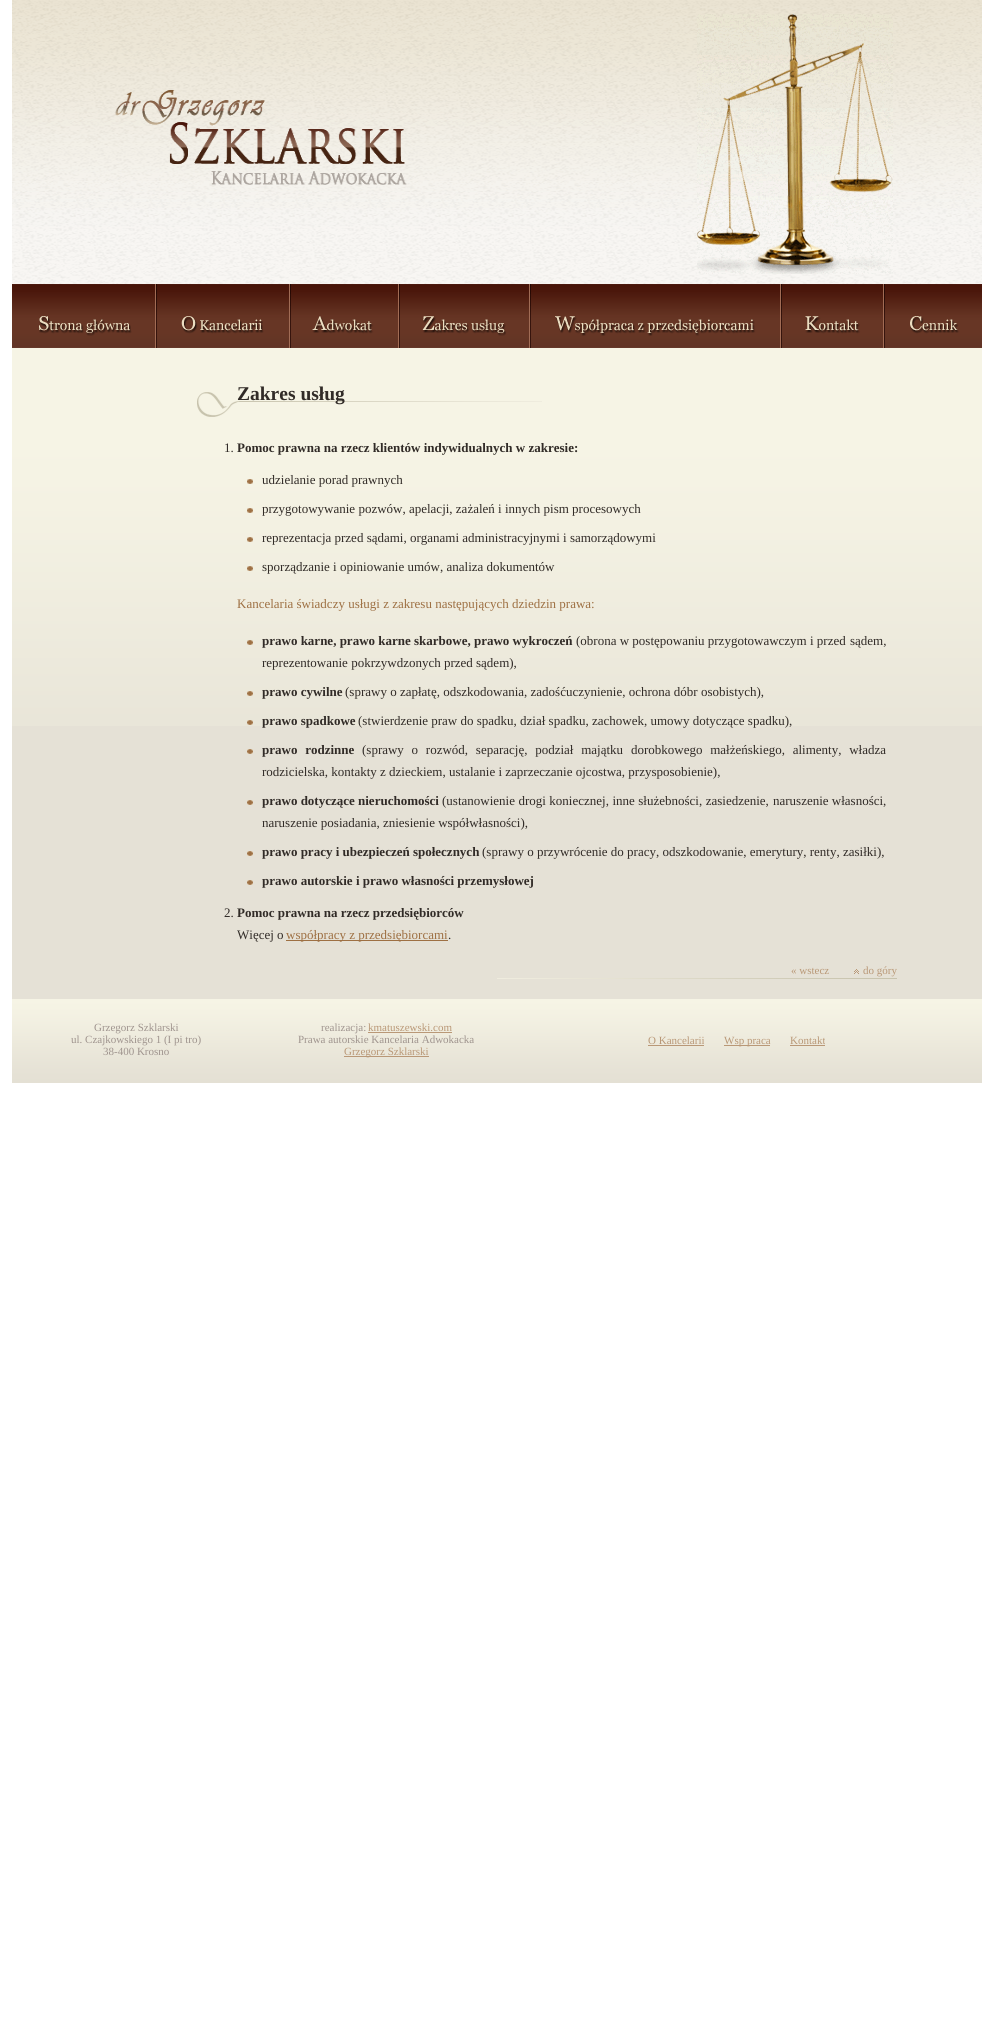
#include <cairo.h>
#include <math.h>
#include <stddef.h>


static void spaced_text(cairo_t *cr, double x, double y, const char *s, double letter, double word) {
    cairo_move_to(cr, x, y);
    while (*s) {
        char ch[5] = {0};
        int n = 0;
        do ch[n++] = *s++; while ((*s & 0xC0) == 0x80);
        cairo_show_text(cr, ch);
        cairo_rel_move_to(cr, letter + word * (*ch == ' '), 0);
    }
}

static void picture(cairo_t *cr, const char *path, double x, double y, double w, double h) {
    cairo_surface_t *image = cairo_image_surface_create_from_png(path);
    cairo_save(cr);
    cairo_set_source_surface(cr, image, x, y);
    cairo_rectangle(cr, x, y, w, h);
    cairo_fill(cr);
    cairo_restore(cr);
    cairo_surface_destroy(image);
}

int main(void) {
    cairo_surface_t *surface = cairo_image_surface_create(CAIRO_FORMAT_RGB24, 993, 2031);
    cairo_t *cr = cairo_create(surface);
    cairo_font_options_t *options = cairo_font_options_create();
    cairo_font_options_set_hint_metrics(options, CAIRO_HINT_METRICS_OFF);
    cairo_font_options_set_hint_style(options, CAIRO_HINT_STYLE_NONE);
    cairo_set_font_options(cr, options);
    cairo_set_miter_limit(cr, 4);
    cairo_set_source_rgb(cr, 1, 1, 1);
    cairo_paint(cr);
    picture(cr, "img1.png", 12, 0, 970, 284);
    picture(cr, "img2.png", 115, 90, 292, 95);
    picture(cr, "img3.png", 697, 14, 196, 260);
    picture(cr, "img4.png", 12, 284, 144, 64);
    picture(cr, "img5.png", 156, 284, 134, 64);
    picture(cr, "img6.png", 290, 284, 109, 64);
    picture(cr, "img7.png", 399, 284, 131, 64);
    picture(cr, "img8.png", 530, 284, 251, 64);
    picture(cr, "img9.png", 781, 284, 103, 64);
    picture(cr, "img10.png", 884, 284, 98, 64);
    cairo_set_source_rgb(cr, 0.898, 0.882, 0.839);
    cairo_rectangle(cr, 12, 726, 970, 273);
    cairo_fill(cr);
    picture(cr, "img11.png", 12, 348, 970, 378);
    picture(cr, "img12.png", 197, 392, 345, 25);
    cairo_select_font_face(cr, "Liberation Serif", CAIRO_FONT_SLANT_NORMAL, CAIRO_FONT_WEIGHT_BOLD);
    cairo_set_font_size(cr, 19.5);
    cairo_set_source_rgb(cr, 0.192, 0.169, 0.153);
    cairo_move_to(cr, 237, 400);
    cairo_show_text(cr, "Zakres usług");
    cairo_select_font_face(cr, "Liberation Serif", CAIRO_FONT_SLANT_NORMAL, CAIRO_FONT_WEIGHT_NORMAL);
    cairo_set_font_size(cr, 13);
    cairo_move_to(cr, 224, 452);
    cairo_show_text(cr, "1.");
    cairo_select_font_face(cr, "Liberation Serif", CAIRO_FONT_SLANT_NORMAL, CAIRO_FONT_WEIGHT_BOLD);
    cairo_move_to(cr, 237, 452);
    cairo_show_text(cr, "Pomoc prawna na rzecz klientów indywidualnych w zakresie:");
    picture(cr, "img13.png", 247, 479, 6, 5);
    cairo_select_font_face(cr, "Liberation Serif", CAIRO_FONT_SLANT_NORMAL, CAIRO_FONT_WEIGHT_NORMAL);
    cairo_move_to(cr, 262, 484);
    cairo_show_text(cr, "udzielanie porad prawnych");
    picture(cr, "img13.png", 247, 508, 6, 5);
    cairo_move_to(cr, 262, 513);
    cairo_show_text(cr, "przygotowywanie pozwów, apelacji, zażaleń i innych pism procesowych");
    picture(cr, "img13.png", 247, 537, 6, 5);
    cairo_move_to(cr, 262, 542);
    cairo_show_text(cr, "reprezentacja przed sądami, organami administracyjnymi i samorządowymi");
    picture(cr, "img13.png", 247, 566, 6, 5);
    cairo_move_to(cr, 262, 571);
    cairo_show_text(cr, "sporządzanie i opiniowanie umów, analiza dokumentów");
    cairo_set_source_rgb(cr, 0.62, 0.439, 0.263);
    cairo_move_to(cr, 237, 608);
    cairo_show_text(cr, "Kancelaria świadczy usługi z zakresu następujących dziedzin prawa:");
    picture(cr, "img13.png", 247, 640, 6, 5);
    cairo_select_font_face(cr, "Liberation Serif", CAIRO_FONT_SLANT_NORMAL, CAIRO_FONT_WEIGHT_BOLD);
    cairo_set_source_rgb(cr, 0.192, 0.169, 0.153);
    cairo_move_to(cr, 262, 645);
    cairo_show_text(cr, "prawo karne, prawo karne skarbowe, prawo wykroczeń");
    cairo_select_font_face(cr, "Liberation Serif", CAIRO_FONT_SLANT_NORMAL, CAIRO_FONT_WEIGHT_NORMAL);
    cairo_move_to(cr, 576, 645);
    cairo_show_text(cr, "(obrona w postępowaniu przygotowawczym i przed");
    cairo_move_to(cr, 850, 645);
    cairo_show_text(cr, "sądem,");
    cairo_move_to(cr, 262, 667);
    cairo_show_text(cr, "reprezentowanie pokrzywdzonych przed sądem),");
    picture(cr, "img13.png", 247, 691, 6, 5);
    cairo_select_font_face(cr, "Liberation Serif", CAIRO_FONT_SLANT_NORMAL, CAIRO_FONT_WEIGHT_BOLD);
    cairo_move_to(cr, 262, 696);
    cairo_show_text(cr, "prawo cywilne");
    cairo_select_font_face(cr, "Liberation Serif", CAIRO_FONT_SLANT_NORMAL, CAIRO_FONT_WEIGHT_NORMAL);
    cairo_move_to(cr, 345, 696);
    cairo_show_text(cr, "(sprawy o zapłatę, odszkodowania, zadośćuczynienie, ochrona dóbr osobistych),");
    picture(cr, "img13.png", 247, 720, 6, 5);
    cairo_select_font_face(cr, "Liberation Serif", CAIRO_FONT_SLANT_NORMAL, CAIRO_FONT_WEIGHT_BOLD);
    cairo_move_to(cr, 262, 725);
    cairo_show_text(cr, "prawo spadkowe");
    cairo_select_font_face(cr, "Liberation Serif", CAIRO_FONT_SLANT_NORMAL, CAIRO_FONT_WEIGHT_NORMAL);
    cairo_move_to(cr, 358, 725);
    cairo_show_text(cr, "(stwierdzenie praw do spadku, dział spadku, zachowek, umowy dotyczące spadku),");
    picture(cr, "img13.png", 247, 749, 6, 5);
    cairo_select_font_face(cr, "Liberation Serif", CAIRO_FONT_SLANT_NORMAL, CAIRO_FONT_WEIGHT_BOLD);
    spaced_text(cr, 262, 754, "prawo rodzinne", 0, 4.5);
    cairo_select_font_face(cr, "Liberation Serif", CAIRO_FONT_SLANT_NORMAL, CAIRO_FONT_WEIGHT_NORMAL);
    spaced_text(cr, 362, 754, "(sprawy o rozwód, separację, podział majątku", 0, 4.5);
    spaced_text(cr, 631, 754, "dorobkowego małżeńskiego, alimenty, władza", 0, 4.5);
    cairo_move_to(cr, 262, 776);
    cairo_show_text(cr, "rodzicielska, kontakty z dzieckiem, ustalanie i zaprzeczanie ojcostwa, przysposobienie),");
    picture(cr, "img13.png", 247, 800, 6, 5);
    cairo_select_font_face(cr, "Liberation Serif", CAIRO_FONT_SLANT_NORMAL, CAIRO_FONT_WEIGHT_BOLD);
    cairo_move_to(cr, 262, 805);
    cairo_show_text(cr, "prawo dotyczące nieruchomości");
    cairo_select_font_face(cr, "Liberation Serif", CAIRO_FONT_SLANT_NORMAL, CAIRO_FONT_WEIGHT_NORMAL);
    spaced_text(cr, 442, 805, "(ustanowienie drogi koniecznej, inne służebności, zasiedzenie,", 0, 0.25);
    cairo_move_to(cr, 773, 805);
    cairo_show_text(cr, "naruszenie własności,");
    cairo_move_to(cr, 262, 827);
    cairo_show_text(cr, "naruszenie posiadania, zniesienie współwłasności),");
    picture(cr, "img13.png", 247, 851, 6, 5);
    cairo_select_font_face(cr, "Liberation Serif", CAIRO_FONT_SLANT_NORMAL, CAIRO_FONT_WEIGHT_BOLD);
    cairo_move_to(cr, 262, 856);
    cairo_show_text(cr, "prawo pracy i ubezpieczeń społecznych");
    cairo_select_font_face(cr, "Liberation Serif", CAIRO_FONT_SLANT_NORMAL, CAIRO_FONT_WEIGHT_NORMAL);
    cairo_move_to(cr, 482, 856);
    cairo_show_text(cr, "(sprawy o przywrócenie do pracy, odszkodowanie, emerytury, renty, zasiłki),");
    picture(cr, "img13.png", 247, 880, 6, 5);
    cairo_select_font_face(cr, "Liberation Serif", CAIRO_FONT_SLANT_NORMAL, CAIRO_FONT_WEIGHT_BOLD);
    cairo_move_to(cr, 262, 885);
    cairo_show_text(cr, "prawo autorskie i prawo własności przemysłowej");
    cairo_select_font_face(cr, "Liberation Serif", CAIRO_FONT_SLANT_NORMAL, CAIRO_FONT_WEIGHT_NORMAL);
    cairo_move_to(cr, 224, 917);
    cairo_show_text(cr, "2.");
    cairo_select_font_face(cr, "Liberation Serif", CAIRO_FONT_SLANT_NORMAL, CAIRO_FONT_WEIGHT_BOLD);
    cairo_move_to(cr, 237, 917);
    cairo_show_text(cr, "Pomoc prawna na rzecz przedsiębiorców");
    cairo_select_font_face(cr, "Liberation Serif", CAIRO_FONT_SLANT_NORMAL, CAIRO_FONT_WEIGHT_NORMAL);
    cairo_move_to(cr, 237, 939);
    cairo_show_text(cr, "Więcej o");
    cairo_set_source_rgb(cr, 0.62, 0.439, 0.263);
    cairo_rectangle(cr, 286, 940, 162, 1);
    cairo_fill(cr);
    cairo_move_to(cr, 286, 939);
    cairo_show_text(cr, "współpracy z przedsiębiorcami");
    cairo_set_source_rgb(cr, 0.192, 0.169, 0.153);
    cairo_move_to(cr, 448, 939);
    cairo_show_text(cr, ".");
    picture(cr, "img14.png", 497, 978, 400, 1);
    cairo_set_font_size(cr, 11);
    cairo_set_source_rgb(cr, 0.725, 0.596, 0.467);
    cairo_move_to(cr, 791, 974);
    cairo_show_text(cr, "« wstecz");
    picture(cr, "img15.png", 854, 969, 5, 5);
    cairo_move_to(cr, 863, 974);
    cairo_show_text(cr, "do góry");
    picture(cr, "img16.png", 12, 999, 970, 84);
    cairo_set_source_rgb(cr, 0.624, 0.58, 0.557);
    cairo_move_to(cr, 94, 1031);
    cairo_show_text(cr, "Grzegorz Szklarski");
    cairo_move_to(cr, 71, 1043);
    cairo_show_text(cr, "ul. Czajkowskiego 1 (I pi tro)");
    cairo_move_to(cr, 103, 1055);
    cairo_show_text(cr, "38-400 Krosno");
    cairo_move_to(cr, 321, 1031);
    cairo_show_text(cr, "realizacja:");
    cairo_set_source_rgb(cr, 0.725, 0.596, 0.467);
    cairo_move_to(cr, 368, 1031);
    cairo_show_text(cr, "kmatuszewski.com");
    cairo_rectangle(cr, 368, 1032, 84, 1);
    cairo_fill(cr);
    cairo_set_source_rgb(cr, 0.624, 0.58, 0.557);
    cairo_move_to(cr, 298, 1043);
    cairo_show_text(cr, "Prawa autorskie Kancelaria Adwokacka");
    cairo_set_source_rgb(cr, 0.725, 0.596, 0.467);
    cairo_rectangle(cr, 344, 1056, 85, 1);
    cairo_fill(cr);
    cairo_move_to(cr, 344, 1055);
    cairo_show_text(cr, "Grzegorz Szklarski");
    cairo_move_to(cr, 648, 1044);
    cairo_show_text(cr, "O Kancelarii");
    cairo_rectangle(cr, 648, 1045, 56, 1);
    cairo_fill(cr);
    cairo_rectangle(cr, 724, 1045, 46, 1);
    cairo_fill(cr);
    cairo_move_to(cr, 724, 1044);
    cairo_show_text(cr, "Wsp praca");
    cairo_move_to(cr, 790, 1044);
    cairo_show_text(cr, "Kontakt");
    cairo_rectangle(cr, 790, 1045, 35, 1);
    cairo_fill(cr);
    cairo_surface_write_to_png(surface, "page.png");
    cairo_font_options_destroy(options);
    cairo_destroy(cr);
    cairo_surface_destroy(surface);
    return 0;
}
